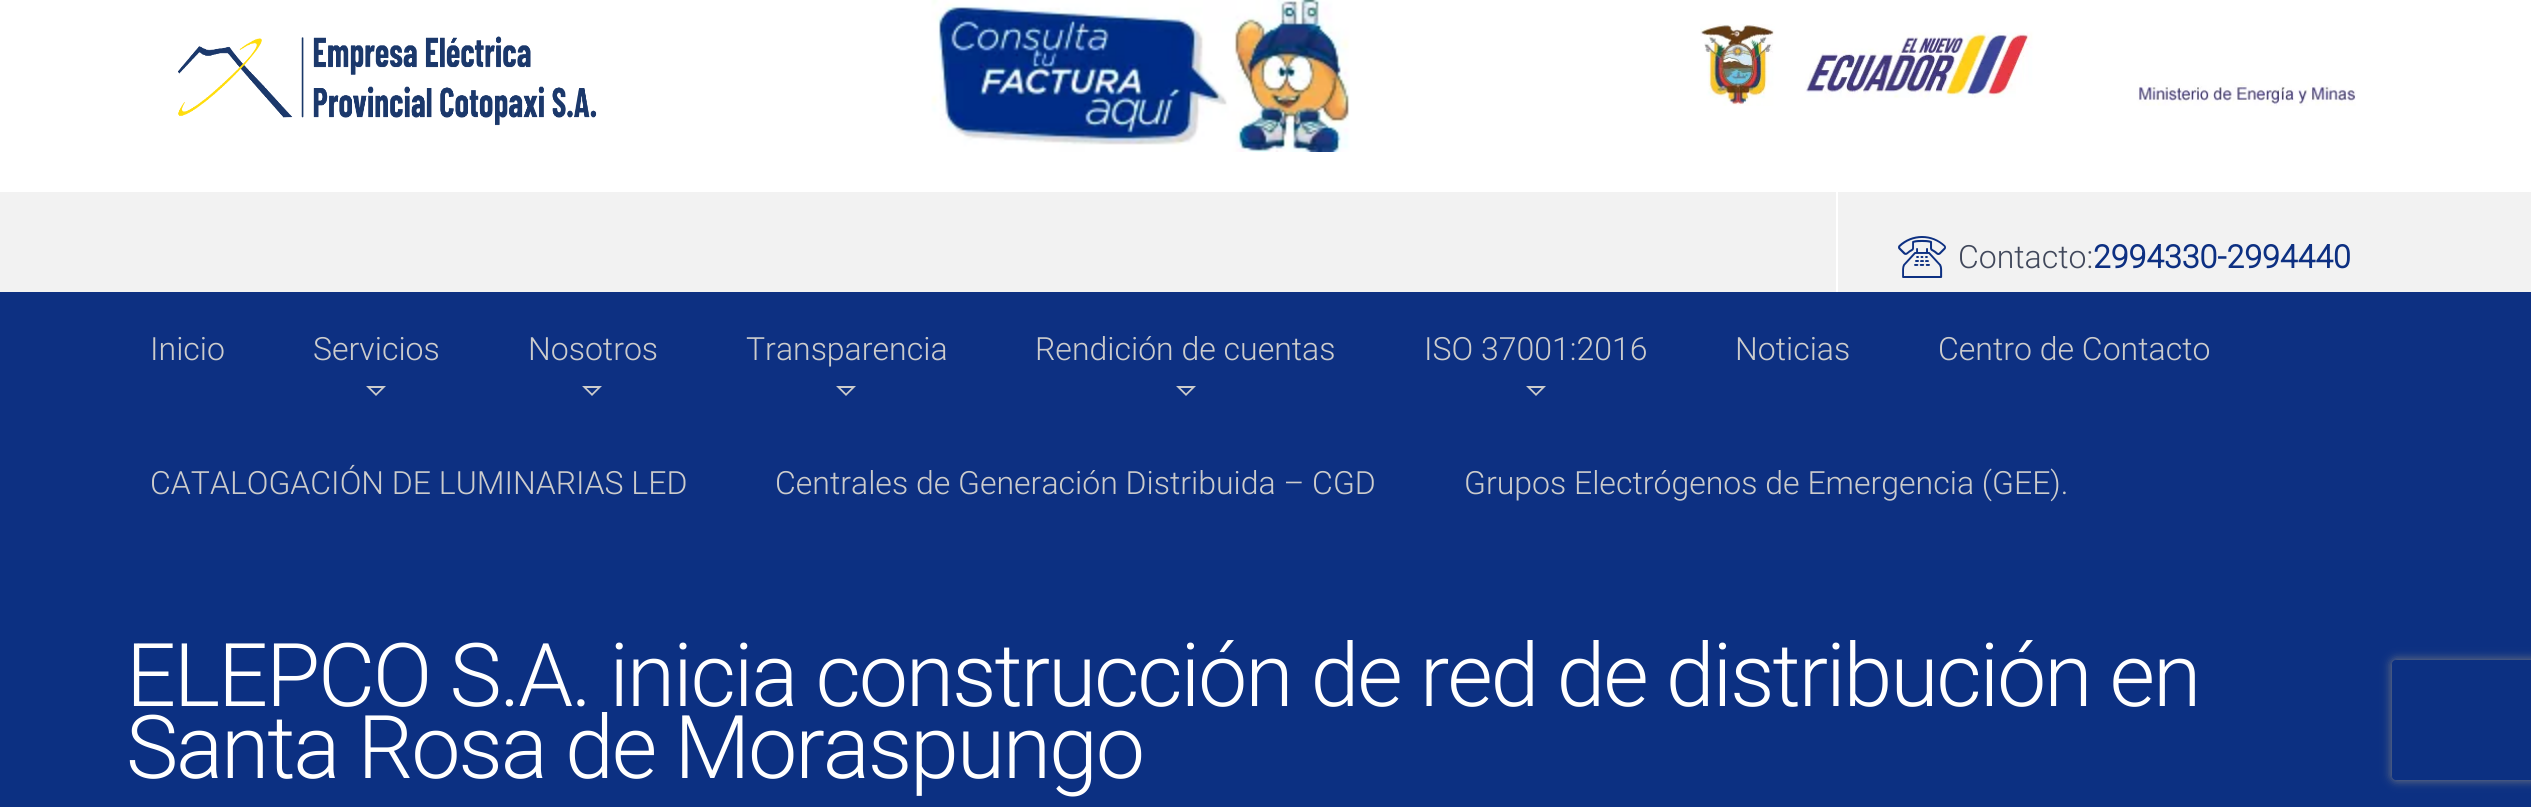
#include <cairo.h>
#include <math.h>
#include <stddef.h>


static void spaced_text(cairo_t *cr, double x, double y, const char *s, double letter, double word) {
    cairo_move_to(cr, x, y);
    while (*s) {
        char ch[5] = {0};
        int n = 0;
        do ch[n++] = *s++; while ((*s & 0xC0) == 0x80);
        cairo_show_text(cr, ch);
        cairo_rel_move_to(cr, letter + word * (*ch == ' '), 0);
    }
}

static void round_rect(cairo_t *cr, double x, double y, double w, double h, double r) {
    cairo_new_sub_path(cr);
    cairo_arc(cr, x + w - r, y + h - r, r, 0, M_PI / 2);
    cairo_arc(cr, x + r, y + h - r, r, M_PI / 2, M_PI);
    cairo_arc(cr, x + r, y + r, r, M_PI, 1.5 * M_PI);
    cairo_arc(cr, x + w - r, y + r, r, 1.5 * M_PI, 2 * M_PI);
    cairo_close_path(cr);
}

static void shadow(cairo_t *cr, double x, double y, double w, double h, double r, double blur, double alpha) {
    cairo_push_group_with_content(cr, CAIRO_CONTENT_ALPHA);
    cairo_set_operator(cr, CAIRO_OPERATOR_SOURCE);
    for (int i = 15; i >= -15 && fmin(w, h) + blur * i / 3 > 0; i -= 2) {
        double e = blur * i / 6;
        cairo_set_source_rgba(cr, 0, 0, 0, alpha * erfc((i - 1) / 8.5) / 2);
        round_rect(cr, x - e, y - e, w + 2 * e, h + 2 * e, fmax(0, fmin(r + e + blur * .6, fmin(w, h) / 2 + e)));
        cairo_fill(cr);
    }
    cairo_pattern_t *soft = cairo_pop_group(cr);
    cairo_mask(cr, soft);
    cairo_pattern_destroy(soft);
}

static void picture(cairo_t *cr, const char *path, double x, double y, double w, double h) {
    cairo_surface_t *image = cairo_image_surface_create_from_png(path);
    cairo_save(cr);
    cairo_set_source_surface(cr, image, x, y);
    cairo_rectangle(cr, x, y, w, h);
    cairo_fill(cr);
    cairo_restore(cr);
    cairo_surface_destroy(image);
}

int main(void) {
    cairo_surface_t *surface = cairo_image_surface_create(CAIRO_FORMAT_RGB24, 2531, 807);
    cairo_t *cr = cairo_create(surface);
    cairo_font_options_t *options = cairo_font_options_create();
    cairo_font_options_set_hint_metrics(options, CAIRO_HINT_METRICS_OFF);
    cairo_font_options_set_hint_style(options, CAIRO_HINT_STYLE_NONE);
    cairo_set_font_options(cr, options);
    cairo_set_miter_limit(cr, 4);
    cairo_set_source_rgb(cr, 1, 1, 1);
    cairo_paint(cr);
    picture(cr, "img1.png", 178, 36, 419, 90);
    picture(cr, "img2.png", 931, 0, 419, 152);
    picture(cr, "img3.png", 1700, 24, 656, 82);
    cairo_set_source_rgb(cr, 0.949, 0.949, 0.949);
    cairo_rectangle(cr, 0, 192, 2531, 100);
    cairo_fill(cr);
    cairo_set_source_rgb(cr, 1, 1, 1);
    cairo_rectangle(cr, 1836, 192, 2, 100);
    cairo_fill(cr);
    picture(cr, "img4.png", 1898, 236, 48, 42);
    cairo_select_font_face(cr, "Roboto Light", CAIRO_FONT_SLANT_NORMAL, CAIRO_FONT_WEIGHT_NORMAL);
    cairo_set_font_size(cr, 32);
    cairo_set_source_rgb(cr, 0.255, 0.282, 0.357);
    cairo_move_to(cr, 1958, 268);
    cairo_show_text(cr, "Contacto:");
    cairo_select_font_face(cr, "Roboto", CAIRO_FONT_SLANT_NORMAL, CAIRO_FONT_WEIGHT_BOLD);
    cairo_set_source_rgb(cr, 0.051, 0.188, 0.51);
    cairo_move_to(cr, 2093, 268);
    cairo_show_text(cr, "2994330-2994440");
    cairo_rectangle(cr, 0, 292, 2531, 268);
    cairo_fill(cr);
    cairo_select_font_face(cr, "Roboto Light", CAIRO_FONT_SLANT_NORMAL, CAIRO_FONT_WEIGHT_NORMAL);
    cairo_set_source_rgb(cr, 0.8, 0.8, 0.8);
    cairo_move_to(cr, 150, 360);
    cairo_show_text(cr, "Inicio");
    cairo_move_to(cr, 313, 360);
    cairo_show_text(cr, "Servicios");
    cairo_new_path(cr);
    cairo_move_to(cr, 381.5, 388);
    cairo_line_to(cr, 376, 393.5);
    cairo_line_to(cr, 370.5, 388);
    cairo_close_path(cr);
    cairo_move_to(cr, 386, 386);
    cairo_line_to(cr, 366, 386);
    cairo_line_to(cr, 376, 396);
    cairo_close_path(cr);
    cairo_fill(cr);
    cairo_move_to(cr, 528, 360);
    cairo_show_text(cr, "Nosotros");
    cairo_new_path(cr);
    cairo_move_to(cr, 597.5, 388);
    cairo_line_to(cr, 592, 393.5);
    cairo_line_to(cr, 586.5, 388);
    cairo_close_path(cr);
    cairo_move_to(cr, 602, 386);
    cairo_line_to(cr, 582, 386);
    cairo_line_to(cr, 592, 396);
    cairo_close_path(cr);
    cairo_fill(cr);
    cairo_move_to(cr, 746, 360);
    cairo_show_text(cr, "Transparencia");
    cairo_new_path(cr);
    cairo_move_to(cr, 851.5, 388);
    cairo_line_to(cr, 846, 393.5);
    cairo_line_to(cr, 840.5, 388);
    cairo_close_path(cr);
    cairo_move_to(cr, 856, 386);
    cairo_line_to(cr, 836, 386);
    cairo_line_to(cr, 846, 396);
    cairo_close_path(cr);
    cairo_fill(cr);
    cairo_move_to(cr, 1035, 360);
    cairo_show_text(cr, "Rendición de cuentas");
    cairo_new_path(cr);
    cairo_move_to(cr, 1191.5, 388);
    cairo_line_to(cr, 1186, 393.5);
    cairo_line_to(cr, 1180.5, 388);
    cairo_close_path(cr);
    cairo_move_to(cr, 1196, 386);
    cairo_line_to(cr, 1176, 386);
    cairo_line_to(cr, 1186, 396);
    cairo_close_path(cr);
    cairo_fill(cr);
    cairo_move_to(cr, 1424, 360);
    cairo_show_text(cr, "ISO 37001:2016");
    cairo_new_path(cr);
    cairo_move_to(cr, 1541.5, 388);
    cairo_line_to(cr, 1536, 393.5);
    cairo_line_to(cr, 1530.5, 388);
    cairo_close_path(cr);
    cairo_move_to(cr, 1546, 386);
    cairo_line_to(cr, 1526, 386);
    cairo_line_to(cr, 1536, 396);
    cairo_close_path(cr);
    cairo_fill(cr);
    cairo_move_to(cr, 1735, 360);
    cairo_show_text(cr, "Noticias");
    cairo_move_to(cr, 1938, 360);
    cairo_show_text(cr, "Centro de Contacto");
    cairo_move_to(cr, 150, 494);
    cairo_show_text(cr, "CATALOGACIÓN DE LUMINARIAS LED");
    cairo_move_to(cr, 775, 494);
    cairo_show_text(cr, "Centrales de Generación Distribuida – CGD");
    cairo_move_to(cr, 1464, 494);
    cairo_show_text(cr, "Grupos Electrógenos de Emergencia (GEE).");
    cairo_set_source_rgb(cr, 0.047, 0.188, 0.51);
    cairo_rectangle(cr, 0, 560, 2531, 247);
    cairo_fill(cr);
    cairo_set_font_size(cr, 88);
    cairo_set_source_rgb(cr, 1, 1, 1);
    spaced_text(cr, 126, 706, "ELEPCO S.A. inicia construcción de red de distribución en", -2.2, 0);
    spaced_text(cr, 126, 778, "Santa Rosa de Moraspungo", -2.2, 0);
    cairo_save(cr);
    cairo_set_fill_rule(cr, CAIRO_FILL_RULE_EVEN_ODD);
    cairo_new_path(cr);
    cairo_move_to(cr, 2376, 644);
    cairo_line_to(cr, 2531, 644);
    cairo_line_to(cr, 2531, 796);
    cairo_line_to(cr, 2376, 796);
    cairo_close_path(cr);
    cairo_move_to(cr, 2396, 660);
    cairo_line_to(cr, 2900, 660);
    cairo_curve_to(cr, 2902, 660, 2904, 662, 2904, 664);
    cairo_line_to(cr, 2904, 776);
    cairo_curve_to(cr, 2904, 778, 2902, 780, 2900, 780);
    cairo_line_to(cr, 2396, 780);
    cairo_curve_to(cr, 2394, 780, 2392, 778, 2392, 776);
    cairo_line_to(cr, 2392, 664);
    cairo_curve_to(cr, 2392, 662, 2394, 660, 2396, 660);
    cairo_close_path(cr);
    cairo_clip(cr);
    cairo_set_source_rgb(cr, 0.502, 0.502, 0.502);
    shadow(cr, 2392, 660, 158, 120, 4, 5, 1);
    cairo_restore(cr);
    cairo_surface_write_to_png(surface, "page.png");
    cairo_font_options_destroy(options);
    cairo_destroy(cr);
    cairo_surface_destroy(surface);
    return 0;
}
